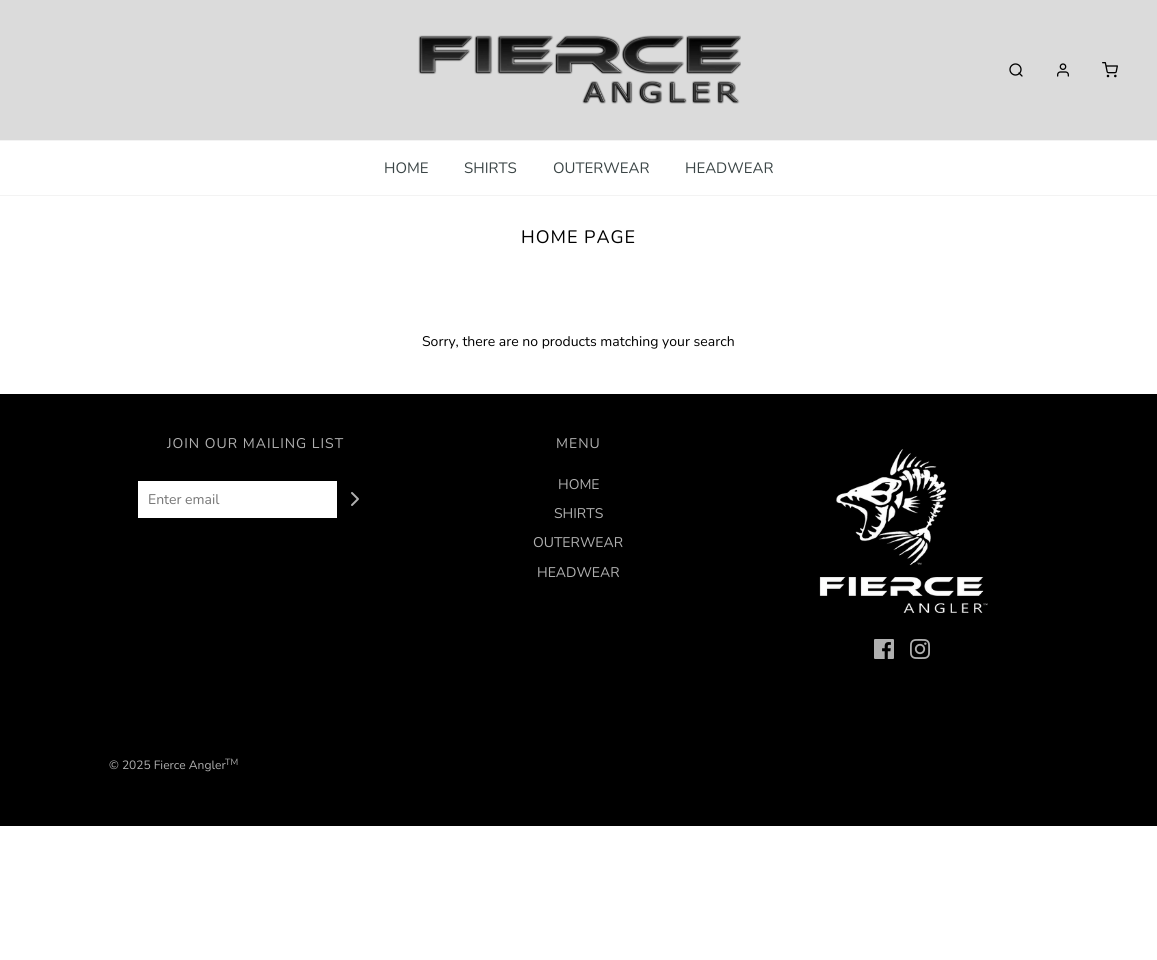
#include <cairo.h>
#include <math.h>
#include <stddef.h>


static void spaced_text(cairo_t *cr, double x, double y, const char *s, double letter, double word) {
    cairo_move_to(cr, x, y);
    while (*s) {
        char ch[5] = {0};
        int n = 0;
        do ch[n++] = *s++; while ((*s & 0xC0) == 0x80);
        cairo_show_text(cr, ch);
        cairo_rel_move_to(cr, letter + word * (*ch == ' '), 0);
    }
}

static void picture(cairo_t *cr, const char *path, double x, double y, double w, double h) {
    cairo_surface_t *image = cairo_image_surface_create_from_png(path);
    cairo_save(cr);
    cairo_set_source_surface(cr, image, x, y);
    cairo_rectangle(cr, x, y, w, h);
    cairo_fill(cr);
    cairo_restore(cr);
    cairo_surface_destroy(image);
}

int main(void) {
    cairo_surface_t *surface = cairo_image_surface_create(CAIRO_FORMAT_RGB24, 1157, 960);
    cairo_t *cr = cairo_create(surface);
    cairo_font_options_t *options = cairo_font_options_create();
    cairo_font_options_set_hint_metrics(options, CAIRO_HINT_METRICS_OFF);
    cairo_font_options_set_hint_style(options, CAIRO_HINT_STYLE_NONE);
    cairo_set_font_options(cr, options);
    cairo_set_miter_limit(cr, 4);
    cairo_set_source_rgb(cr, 1, 1, 1);
    cairo_paint(cr);
    cairo_set_source_rgb(cr, 0.859, 0.859, 0.859);
    cairo_rectangle(cr, 0, 0, 1157, 140);
    cairo_fill(cr);
    picture(cr, "img1.png", 418, 35, 323, 69);
    cairo_arc(cr, 1015.5, 69.5, 5.5, 0, 2 * M_PI);
    cairo_set_source_rgb(cr, 0, 0, 0);
    cairo_set_line_width(cr, 1.3);
    cairo_stroke(cr);
    cairo_new_path(cr);
    cairo_move_to(cr, 1022, 76);
    cairo_line_to(cr, 1019, 73);
    cairo_set_line_cap(cr, CAIRO_LINE_CAP_ROUND);
    cairo_set_line_join(cr, CAIRO_LINE_JOIN_ROUND);
    cairo_stroke(cr);
    picture(cr, "img2.png", 1057, 63, 12, 14);
    picture(cr, "img3.png", 1102, 62, 16, 16);
    cairo_set_source_rgb(cr, 0.953, 0.953, 0.953);
    cairo_rectangle(cr, 0, 140, 1157, 1);
    cairo_fill(cr);
    cairo_rectangle(cr, 0, 195, 1157, 1);
    cairo_fill(cr);
    cairo_select_font_face(cr, "Nunito", CAIRO_FONT_SLANT_NORMAL, CAIRO_FONT_WEIGHT_NORMAL);
    cairo_set_font_size(cr, 15);
    cairo_set_source_rgb(cr, 0.231, 0.271, 0.275);
    cairo_move_to(cr, 384, 173);
    cairo_show_text(cr, "HOME");
    cairo_move_to(cr, 464, 173);
    cairo_show_text(cr, "SHIRTS");
    cairo_move_to(cr, 553, 173);
    cairo_show_text(cr, "OUTERWEAR");
    cairo_move_to(cr, 685, 173);
    cairo_show_text(cr, "HEADWEAR");
    cairo_set_font_size(cr, 18);
    cairo_set_source_rgb(cr, 0, 0, 0);
    spaced_text(cr, 521, 243, "HOME PAGE", 1, 0);
    cairo_set_font_size(cr, 14);
    cairo_move_to(cr, 422, 346);
    cairo_show_text(cr, "Sorry, there are no products matching your search");
    cairo_rectangle(cr, 0, 394, 1157, 432);
    cairo_fill(cr);
    cairo_set_source_rgb(cr, 0.69, 0.69, 0.69);
    spaced_text(cr, 167, 448, "JOIN OUR MAILING LIST", 1, 0);
    cairo_set_source_rgb(cr, 1, 1, 1);
    cairo_rectangle(cr, 138, 481, 199, 37);
    cairo_fill(cr);
    cairo_set_source_rgb(cr, 0.459, 0.459, 0.459);
    cairo_move_to(cr, 148, 504);
    cairo_show_text(cr, "Enter email");
    cairo_new_path(cr);
    cairo_move_to(cr, 352, 505);
    cairo_line_to(cr, 358, 499);
    cairo_line_to(cr, 352, 493);
    cairo_set_source_rgb(cr, 0.69, 0.69, 0.69);
    cairo_set_line_width(cr, 2);
    cairo_stroke(cr);
    spaced_text(cr, 556, 448, "MENU", 1, 0);
    cairo_move_to(cr, 558, 489);
    cairo_show_text(cr, "HOME");
    cairo_move_to(cr, 554, 518);
    cairo_show_text(cr, "SHIRTS");
    cairo_move_to(cr, 533, 547);
    cairo_show_text(cr, "OUTERWEAR");
    cairo_move_to(cr, 537, 577);
    cairo_show_text(cr, "HEADWEAR");
    picture(cr, "img4.png", 819, 449, 169, 164);
    picture(cr, "img5.png", 874, 639, 20, 20);
    picture(cr, "img6.png", 910, 639, 20, 20);
    cairo_set_font_size(cr, 12);
    cairo_move_to(cr, 109, 769);
    cairo_show_text(cr, "© 2025 Fierce Angler");
    cairo_set_font_size(cr, 9);
    cairo_move_to(cr, 225, 765);
    cairo_show_text(cr, "TM");
    cairo_surface_write_to_png(surface, "page.png");
    cairo_font_options_destroy(options);
    cairo_destroy(cr);
    cairo_surface_destroy(surface);
    return 0;
}
